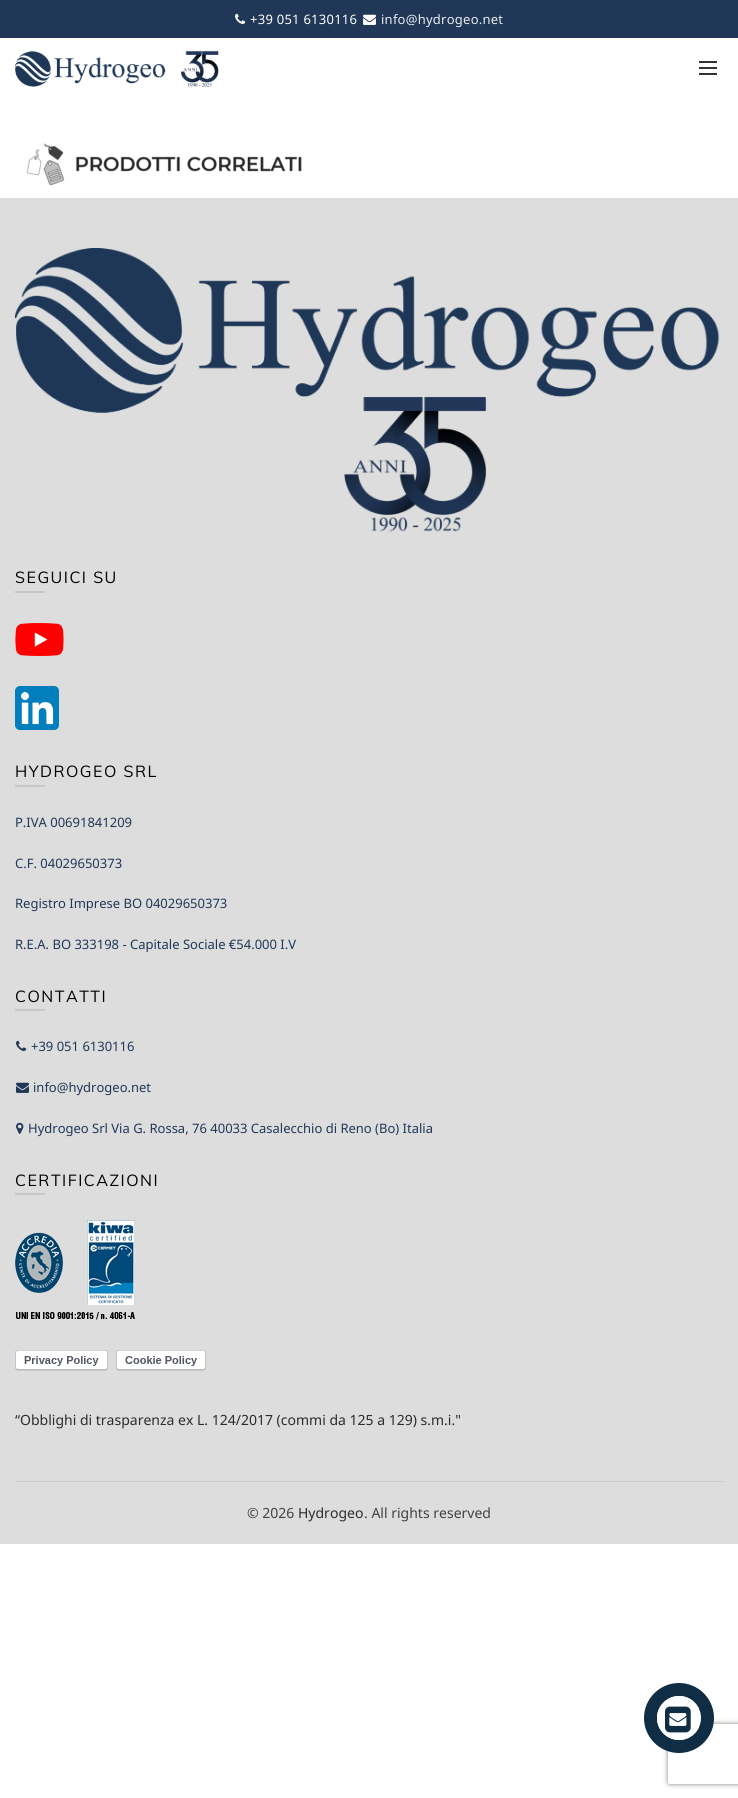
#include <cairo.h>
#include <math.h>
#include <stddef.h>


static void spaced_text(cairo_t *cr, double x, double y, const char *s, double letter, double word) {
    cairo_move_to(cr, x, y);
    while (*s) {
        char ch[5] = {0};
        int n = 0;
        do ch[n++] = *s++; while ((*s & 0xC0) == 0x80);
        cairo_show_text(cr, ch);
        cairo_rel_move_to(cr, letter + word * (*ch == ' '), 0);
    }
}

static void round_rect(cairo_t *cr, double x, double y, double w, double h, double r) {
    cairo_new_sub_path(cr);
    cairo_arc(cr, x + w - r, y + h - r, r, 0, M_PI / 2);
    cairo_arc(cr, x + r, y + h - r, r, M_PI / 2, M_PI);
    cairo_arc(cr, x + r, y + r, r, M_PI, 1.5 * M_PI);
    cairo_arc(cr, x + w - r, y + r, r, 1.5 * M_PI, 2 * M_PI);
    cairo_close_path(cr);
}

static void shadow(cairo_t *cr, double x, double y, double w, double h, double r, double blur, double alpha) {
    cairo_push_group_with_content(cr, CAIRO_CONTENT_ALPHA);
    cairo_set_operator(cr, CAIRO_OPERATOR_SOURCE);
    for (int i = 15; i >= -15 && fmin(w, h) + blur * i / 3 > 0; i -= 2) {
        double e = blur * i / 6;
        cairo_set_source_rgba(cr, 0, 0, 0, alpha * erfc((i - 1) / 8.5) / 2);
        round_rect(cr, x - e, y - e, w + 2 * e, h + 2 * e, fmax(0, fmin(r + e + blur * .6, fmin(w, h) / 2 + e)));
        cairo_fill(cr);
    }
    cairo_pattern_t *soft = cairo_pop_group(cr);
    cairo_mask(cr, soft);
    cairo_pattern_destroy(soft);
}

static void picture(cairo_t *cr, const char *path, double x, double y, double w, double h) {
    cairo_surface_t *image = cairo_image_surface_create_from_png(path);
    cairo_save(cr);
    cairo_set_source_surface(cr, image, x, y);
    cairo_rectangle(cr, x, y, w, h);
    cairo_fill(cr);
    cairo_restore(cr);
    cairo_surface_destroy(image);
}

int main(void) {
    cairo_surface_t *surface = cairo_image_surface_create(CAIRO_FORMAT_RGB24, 738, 1798);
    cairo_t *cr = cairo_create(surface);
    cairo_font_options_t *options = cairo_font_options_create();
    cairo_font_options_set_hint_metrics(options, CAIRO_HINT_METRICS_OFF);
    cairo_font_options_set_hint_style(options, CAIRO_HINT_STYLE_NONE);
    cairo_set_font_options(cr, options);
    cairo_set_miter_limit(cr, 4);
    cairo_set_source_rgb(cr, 1, 1, 1);
    cairo_paint(cr);
    cairo_set_source_rgb(cr, 0.125, 0.216, 0.341);
    cairo_rectangle(cr, 0, 0, 738, 38);
    cairo_fill(cr);
    picture(cr, "img1.png", 235, 13, 11, 11);
    cairo_select_font_face(cr, "Noto Sans", CAIRO_FONT_SLANT_NORMAL, CAIRO_FONT_WEIGHT_NORMAL);
    cairo_set_font_size(cr, 13);
    cairo_set_source_rgb(cr, 1, 1, 1);
    spaced_text(cr, 250, 24, "+39 051 6130116", 0.25, 0);
    picture(cr, "img2.png", 363, 14, 13, 11);
    cairo_set_source_rgb(cr, 0.914, 0.922, 0.933);
    spaced_text(cr, 381, 24, "info@hydrogeo.net", 0.25, 0);
    picture(cr, "img3.png", 15, 50, 204, 37);
    cairo_set_source_rgb(cr, 0.2, 0.2, 0.2);
    cairo_rectangle(cr, 699, 67, 18, 2);
    cairo_fill(cr);
    cairo_rectangle(cr, 699, 61, 18, 2);
    cairo_fill(cr);
    cairo_rectangle(cr, 699, 73, 18, 2);
    cairo_fill(cr);
    picture(cr, "img4.png", 26, 143, 276, 43);
    cairo_set_source_rgb(cr, 0.867, 0.867, 0.867);
    cairo_rectangle(cr, 0, 198, 738, 1346);
    cairo_fill(cr);
    picture(cr, "img5.png", 15, 248, 705, 284);
    cairo_select_font_face(cr, "Muli", CAIRO_FONT_SLANT_NORMAL, CAIRO_FONT_WEIGHT_NORMAL);
    cairo_set_font_size(cr, 16);
    cairo_set_source_rgb(cr, 0, 0, 0);
    spaced_text(cr, 15, 583, "SEGUICI SU", 1.5, 0);
    cairo_set_source_rgb(cr, 0.78, 0.78, 0.78);
    cairo_rectangle(cr, 15, 591, 30, 2);
    cairo_fill(cr);
    picture(cr, "img6.png", 15, 623, 49, 33);
    picture(cr, "img7.png", 15, 686, 44, 44);
    cairo_set_source_rgb(cr, 0, 0, 0);
    spaced_text(cr, 15, 777, "HYDROGEO SRL", 1.5, 0);
    cairo_set_source_rgb(cr, 0.78, 0.78, 0.78);
    cairo_rectangle(cr, 15, 785, 30, 2);
    cairo_fill(cr);
    cairo_select_font_face(cr, "Noto Sans", CAIRO_FONT_SLANT_NORMAL, CAIRO_FONT_WEIGHT_NORMAL);
    cairo_set_font_size(cr, 13);
    cairo_set_source_rgb(cr, 0.125, 0.216, 0.341);
    cairo_move_to(cr, 15, 827);
    cairo_show_text(cr, "P.IVA 00691841209");
    cairo_move_to(cr, 15, 868);
    cairo_show_text(cr, "C.F. 04029650373");
    cairo_move_to(cr, 15, 908);
    cairo_show_text(cr, "Registro Imprese BO 04029650373");
    cairo_move_to(cr, 15, 949);
    cairo_show_text(cr, "R.E.A. BO 333198 - Capitale Sociale €54.000 I.V");
    cairo_select_font_face(cr, "Muli", CAIRO_FONT_SLANT_NORMAL, CAIRO_FONT_WEIGHT_NORMAL);
    cairo_set_font_size(cr, 16);
    cairo_set_source_rgb(cr, 0, 0, 0);
    spaced_text(cr, 15, 1002, "CONTATTI", 1.5, 0);
    cairo_set_source_rgb(cr, 0.78, 0.78, 0.78);
    cairo_rectangle(cr, 15, 1009, 30, 2);
    cairo_fill(cr);
    picture(cr, "img8.png", 16, 1040, 11, 11);
    cairo_select_font_face(cr, "Noto Sans", CAIRO_FONT_SLANT_NORMAL, CAIRO_FONT_WEIGHT_NORMAL);
    cairo_set_font_size(cr, 13);
    cairo_set_source_rgb(cr, 0.125, 0.216, 0.341);
    cairo_move_to(cr, 31, 1051);
    cairo_show_text(cr, "+39 051 6130116");
    picture(cr, "img9.png", 16, 1082, 13, 11);
    cairo_move_to(cr, 33, 1092);
    cairo_show_text(cr, "info@hydrogeo.net");
    picture(cr, "img10.png", 16, 1122, 8, 12);
    cairo_move_to(cr, 28, 1133);
    cairo_show_text(cr, "Hydrogeo Srl Via G. Rossa, 76 40033 Casalecchio di Reno (Bo) Italia");
    cairo_select_font_face(cr, "Muli", CAIRO_FONT_SLANT_NORMAL, CAIRO_FONT_WEIGHT_NORMAL);
    cairo_set_font_size(cr, 16);
    cairo_set_source_rgb(cr, 0, 0, 0);
    spaced_text(cr, 15, 1186, "CERTIFICAZIONI", 1.5, 0);
    cairo_set_source_rgb(cr, 0.78, 0.78, 0.78);
    cairo_rectangle(cr, 15, 1193, 30, 2);
    cairo_fill(cr);
    picture(cr, "img11.png", 15, 1220, 120, 100);
    picture(cr, "img12.png", 15, 1350, 93, 21);
    picture(cr, "img13.png", 116, 1350, 90, 21);
    cairo_select_font_face(cr, "Noto Sans", CAIRO_FONT_SLANT_NORMAL, CAIRO_FONT_WEIGHT_NORMAL);
    cairo_set_font_size(cr, 14);
    cairo_set_source_rgb(cr, 0.173, 0.173, 0.173);
    cairo_move_to(cr, 15, 1425);
    cairo_show_text(cr, "“Obblighi di trasparenza ex L. 124/2017 (commi da 125 a 129) s.m.i.\"");
    cairo_set_source_rgb(cr, 0.792, 0.792, 0.792);
    cairo_rectangle(cr, 15, 1481, 708, 1);
    cairo_fill(cr);
    cairo_set_source_rgb(cr, 0.259, 0.259, 0.259);
    cairo_move_to(cr, 247, 1518);
    cairo_show_text(cr, "© 2026");
    cairo_set_source_rgb(cr, 0.173, 0.173, 0.173);
    cairo_move_to(cr, 298, 1518);
    cairo_show_text(cr, "Hydrogeo");
    cairo_set_source_rgb(cr, 0.259, 0.259, 0.259);
    cairo_move_to(cr, 364, 1518);
    cairo_show_text(cr, ". All rights reserved");
    cairo_save(cr);
    cairo_set_fill_rule(cr, CAIRO_FILL_RULE_EVEN_ODD);
    cairo_new_path(cr);
    cairo_move_to(cr, 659, 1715);
    cairo_line_to(cr, 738, 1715);
    cairo_line_to(cr, 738, 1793);
    cairo_line_to(cr, 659, 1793);
    cairo_close_path(cr);
    cairo_move_to(cr, 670, 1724);
    cairo_line_to(cr, 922, 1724);
    cairo_curve_to(cr, 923, 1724, 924, 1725, 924, 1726);
    cairo_line_to(cr, 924, 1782);
    cairo_curve_to(cr, 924, 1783, 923, 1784, 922, 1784);
    cairo_line_to(cr, 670, 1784);
    cairo_curve_to(cr, 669, 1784, 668, 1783, 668, 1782);
    cairo_line_to(cr, 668, 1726);
    cairo_curve_to(cr, 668, 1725, 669, 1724, 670, 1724);
    cairo_close_path(cr);
    cairo_clip(cr);
    cairo_set_source_rgb(cr, 0.502, 0.502, 0.502);
    shadow(cr, 668, 1724, 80, 60, 2, 2.5, 1);
    cairo_restore(cr);
    cairo_set_source_rgb(cr, 0.059, 0.176, 0.267);
    cairo_arc(cr, 679, 1718, 35, 0, 2 * M_PI);
    cairo_fill(cr);
    cairo_set_source_rgb(cr, 1, 1, 1);
    cairo_arc(cr, 679, 1718, 22, 0, 2 * M_PI);
    cairo_fill(cr);
    cairo_save(cr);
    round_rect(cr, 657, 1696, 44, 44, 22);
    cairo_clip(cr);
    cairo_new_path(cr);
    cairo_move_to(cr, 679, 1696);
    cairo_line_to(cr, 699, 1696);
    cairo_line_to(cr, 699, 1740);
    cairo_line_to(cr, 679, 1740);
    cairo_curve_to(cr, 667, 1740, 657, 1730, 657, 1718);
    cairo_curve_to(cr, 657, 1706, 667, 1696, 679, 1696);
    cairo_close_path(cr);
    cairo_fill(cr);
    cairo_restore(cr);
    picture(cr, "img14.png", 665, 1706, 26, 27);
    cairo_surface_write_to_png(surface, "page.png");
    cairo_font_options_destroy(options);
    cairo_destroy(cr);
    cairo_surface_destroy(surface);
    return 0;
}
